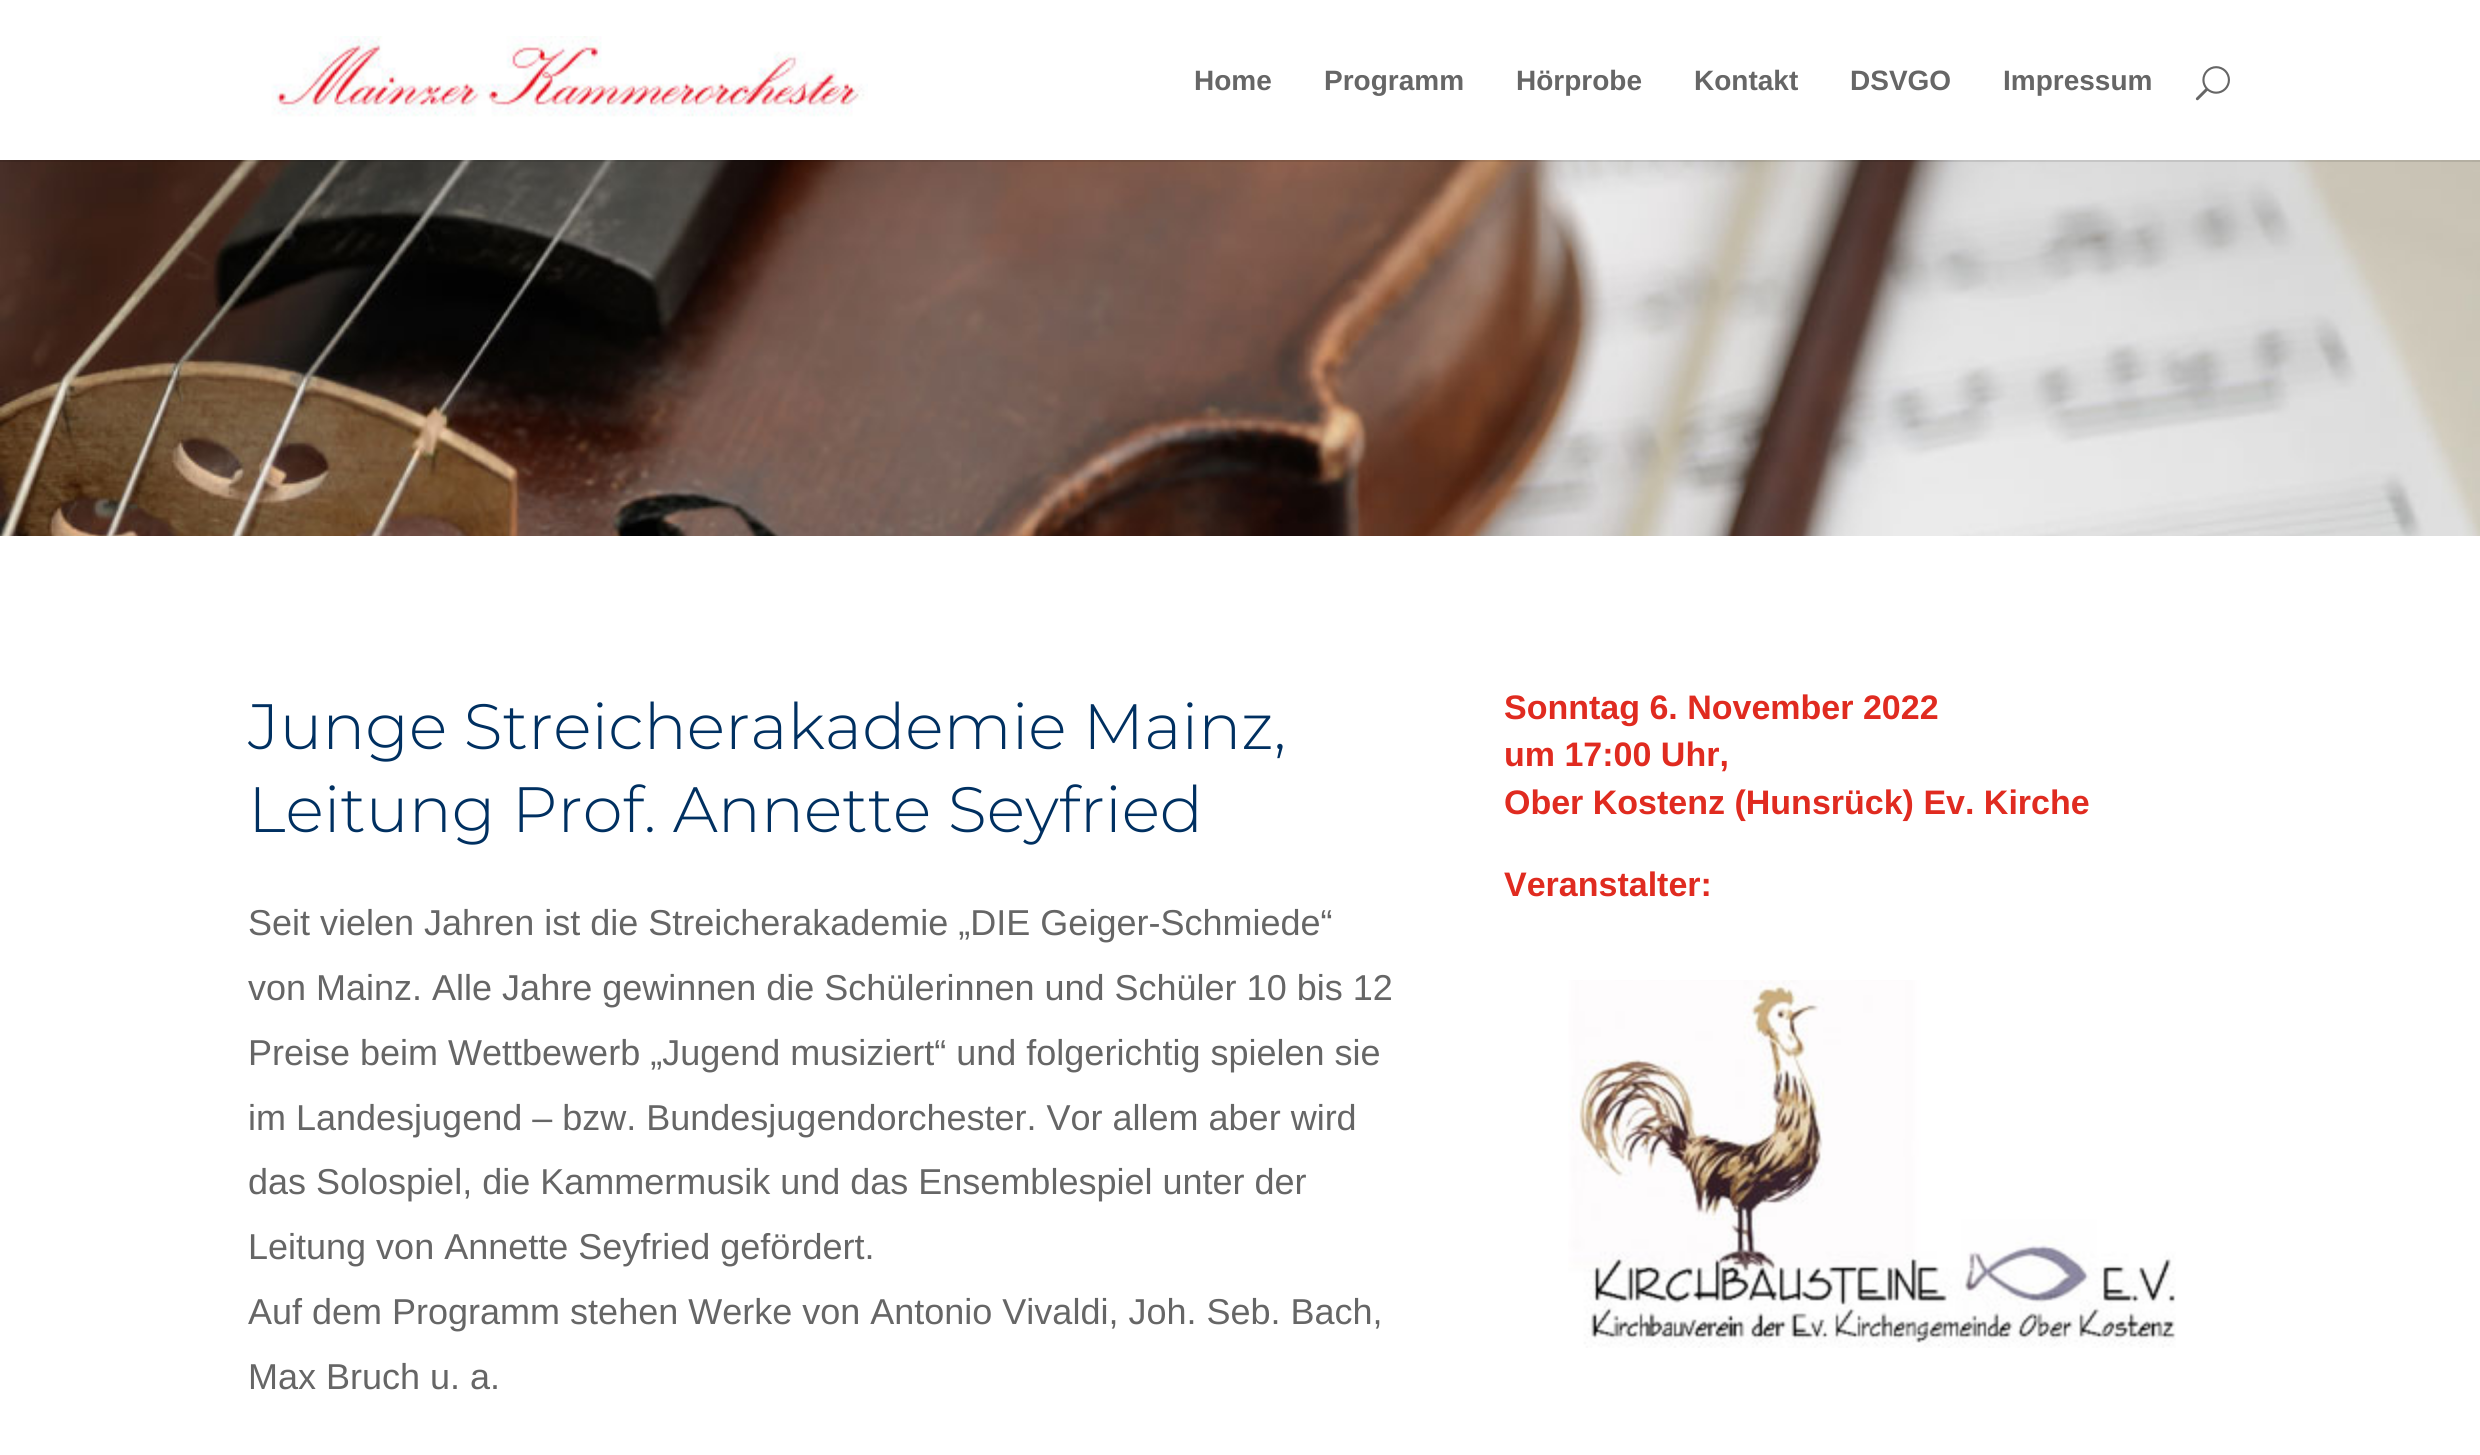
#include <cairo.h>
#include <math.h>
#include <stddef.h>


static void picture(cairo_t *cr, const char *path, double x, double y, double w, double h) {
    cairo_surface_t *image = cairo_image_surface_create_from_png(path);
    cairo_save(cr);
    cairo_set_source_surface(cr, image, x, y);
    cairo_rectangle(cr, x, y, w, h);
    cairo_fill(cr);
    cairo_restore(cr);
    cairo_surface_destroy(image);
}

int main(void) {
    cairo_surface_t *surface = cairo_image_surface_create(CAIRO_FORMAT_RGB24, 2480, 1455);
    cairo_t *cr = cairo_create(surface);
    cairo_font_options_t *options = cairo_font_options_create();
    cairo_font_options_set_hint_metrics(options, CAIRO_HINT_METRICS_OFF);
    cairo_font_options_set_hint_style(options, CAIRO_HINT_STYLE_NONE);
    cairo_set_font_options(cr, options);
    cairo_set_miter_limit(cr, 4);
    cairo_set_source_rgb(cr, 1, 1, 1);
    cairo_paint(cr);
    picture(cr, "img3.png", 0, 160, 2480, 376);
    cairo_set_source_rgba(cr, 0, 0, 0, 0.1);
    cairo_rectangle(cr, 0, 160, 2480, 2);
    cairo_fill(cr);
    picture(cr, "img1.png", 271, 36, 597, 81);
    cairo_select_font_face(cr, "Liberation Sans", CAIRO_FONT_SLANT_NORMAL, CAIRO_FONT_WEIGHT_BOLD);
    cairo_set_font_size(cr, 28);
    cairo_set_source_rgb(cr, 0.4, 0.4, 0.4);
    cairo_move_to(cr, 1194, 90);
    cairo_show_text(cr, "Home");
    cairo_move_to(cr, 1324, 90);
    cairo_show_text(cr, "Programm");
    cairo_move_to(cr, 1516, 90);
    cairo_show_text(cr, "Hörprobe");
    cairo_move_to(cr, 1694, 90);
    cairo_show_text(cr, "Kontakt");
    cairo_move_to(cr, 1850, 90);
    cairo_show_text(cr, "DSVGO");
    cairo_move_to(cr, 2003, 90);
    cairo_show_text(cr, "Impressum");
    picture(cr, "img2.png", 2195, 66, 35, 35);
    cairo_select_font_face(cr, "Montserrat Light", CAIRO_FONT_SLANT_NORMAL, CAIRO_FONT_WEIGHT_NORMAL);
    cairo_set_font_size(cr, 64);
    cairo_set_source_rgb(cr, 0, 0.188, 0.38);
    cairo_move_to(cr, 248, 749);
    cairo_show_text(cr, "Junge Streicherakademie Mainz,");
    cairo_move_to(cr, 248, 832);
    cairo_show_text(cr, "Leitung Prof. Annette Seyfried");
    cairo_select_font_face(cr, "Liberation Sans", CAIRO_FONT_SLANT_NORMAL, CAIRO_FONT_WEIGHT_NORMAL);
    cairo_set_font_size(cr, 36);
    cairo_set_source_rgb(cr, 0.4, 0.4, 0.4);
    cairo_move_to(cr, 248, 935);
    cairo_show_text(cr, "Seit vielen Jahren ist die Streicherakademie „DIE Geiger-Schmiede“");
    cairo_move_to(cr, 248, 1000);
    cairo_show_text(cr, "von Mainz. Alle Jahre gewinnen die Schülerinnen und Schüler 10 bis 12");
    cairo_move_to(cr, 248, 1065);
    cairo_show_text(cr, "Preise beim Wettbewerb „Jugend musiziert“ und folgerichtig spielen sie");
    cairo_move_to(cr, 248, 1130);
    cairo_show_text(cr, "im Landesjugend – bzw. Bundesjugendorchester. Vor allem aber wird");
    cairo_move_to(cr, 248, 1194);
    cairo_show_text(cr, "das Solospiel, die Kammermusik und das Ensemblespiel unter der");
    cairo_move_to(cr, 248, 1259);
    cairo_show_text(cr, "Leitung von Annette Seyfried gefördert.");
    cairo_move_to(cr, 248, 1324);
    cairo_show_text(cr, "Auf dem Programm stehen Werke von Antonio Vivaldi, Joh. Seb. Bach,");
    cairo_move_to(cr, 248, 1389);
    cairo_show_text(cr, "Max Bruch u. a.");
    cairo_select_font_face(cr, "Liberation Sans", CAIRO_FONT_SLANT_NORMAL, CAIRO_FONT_WEIGHT_BOLD);
    cairo_set_font_size(cr, 34);
    cairo_set_source_rgb(cr, 0.878, 0.169, 0.125);
    cairo_move_to(cr, 1504, 719);
    cairo_show_text(cr, "Sonntag 6. November 2022");
    cairo_move_to(cr, 1504, 766);
    cairo_show_text(cr, "um 17:00 Uhr,");
    cairo_move_to(cr, 1504, 814);
    cairo_show_text(cr, "Ober Kostenz (Hunsrück) Ev. Kirche");
    cairo_move_to(cr, 1504, 896);
    cairo_show_text(cr, "Veranstalter:");
    picture(cr, "img4.png", 1568, 980, 608, 368);
    cairo_surface_write_to_png(surface, "page.png");
    cairo_font_options_destroy(options);
    cairo_destroy(cr);
    cairo_surface_destroy(surface);
    return 0;
}
